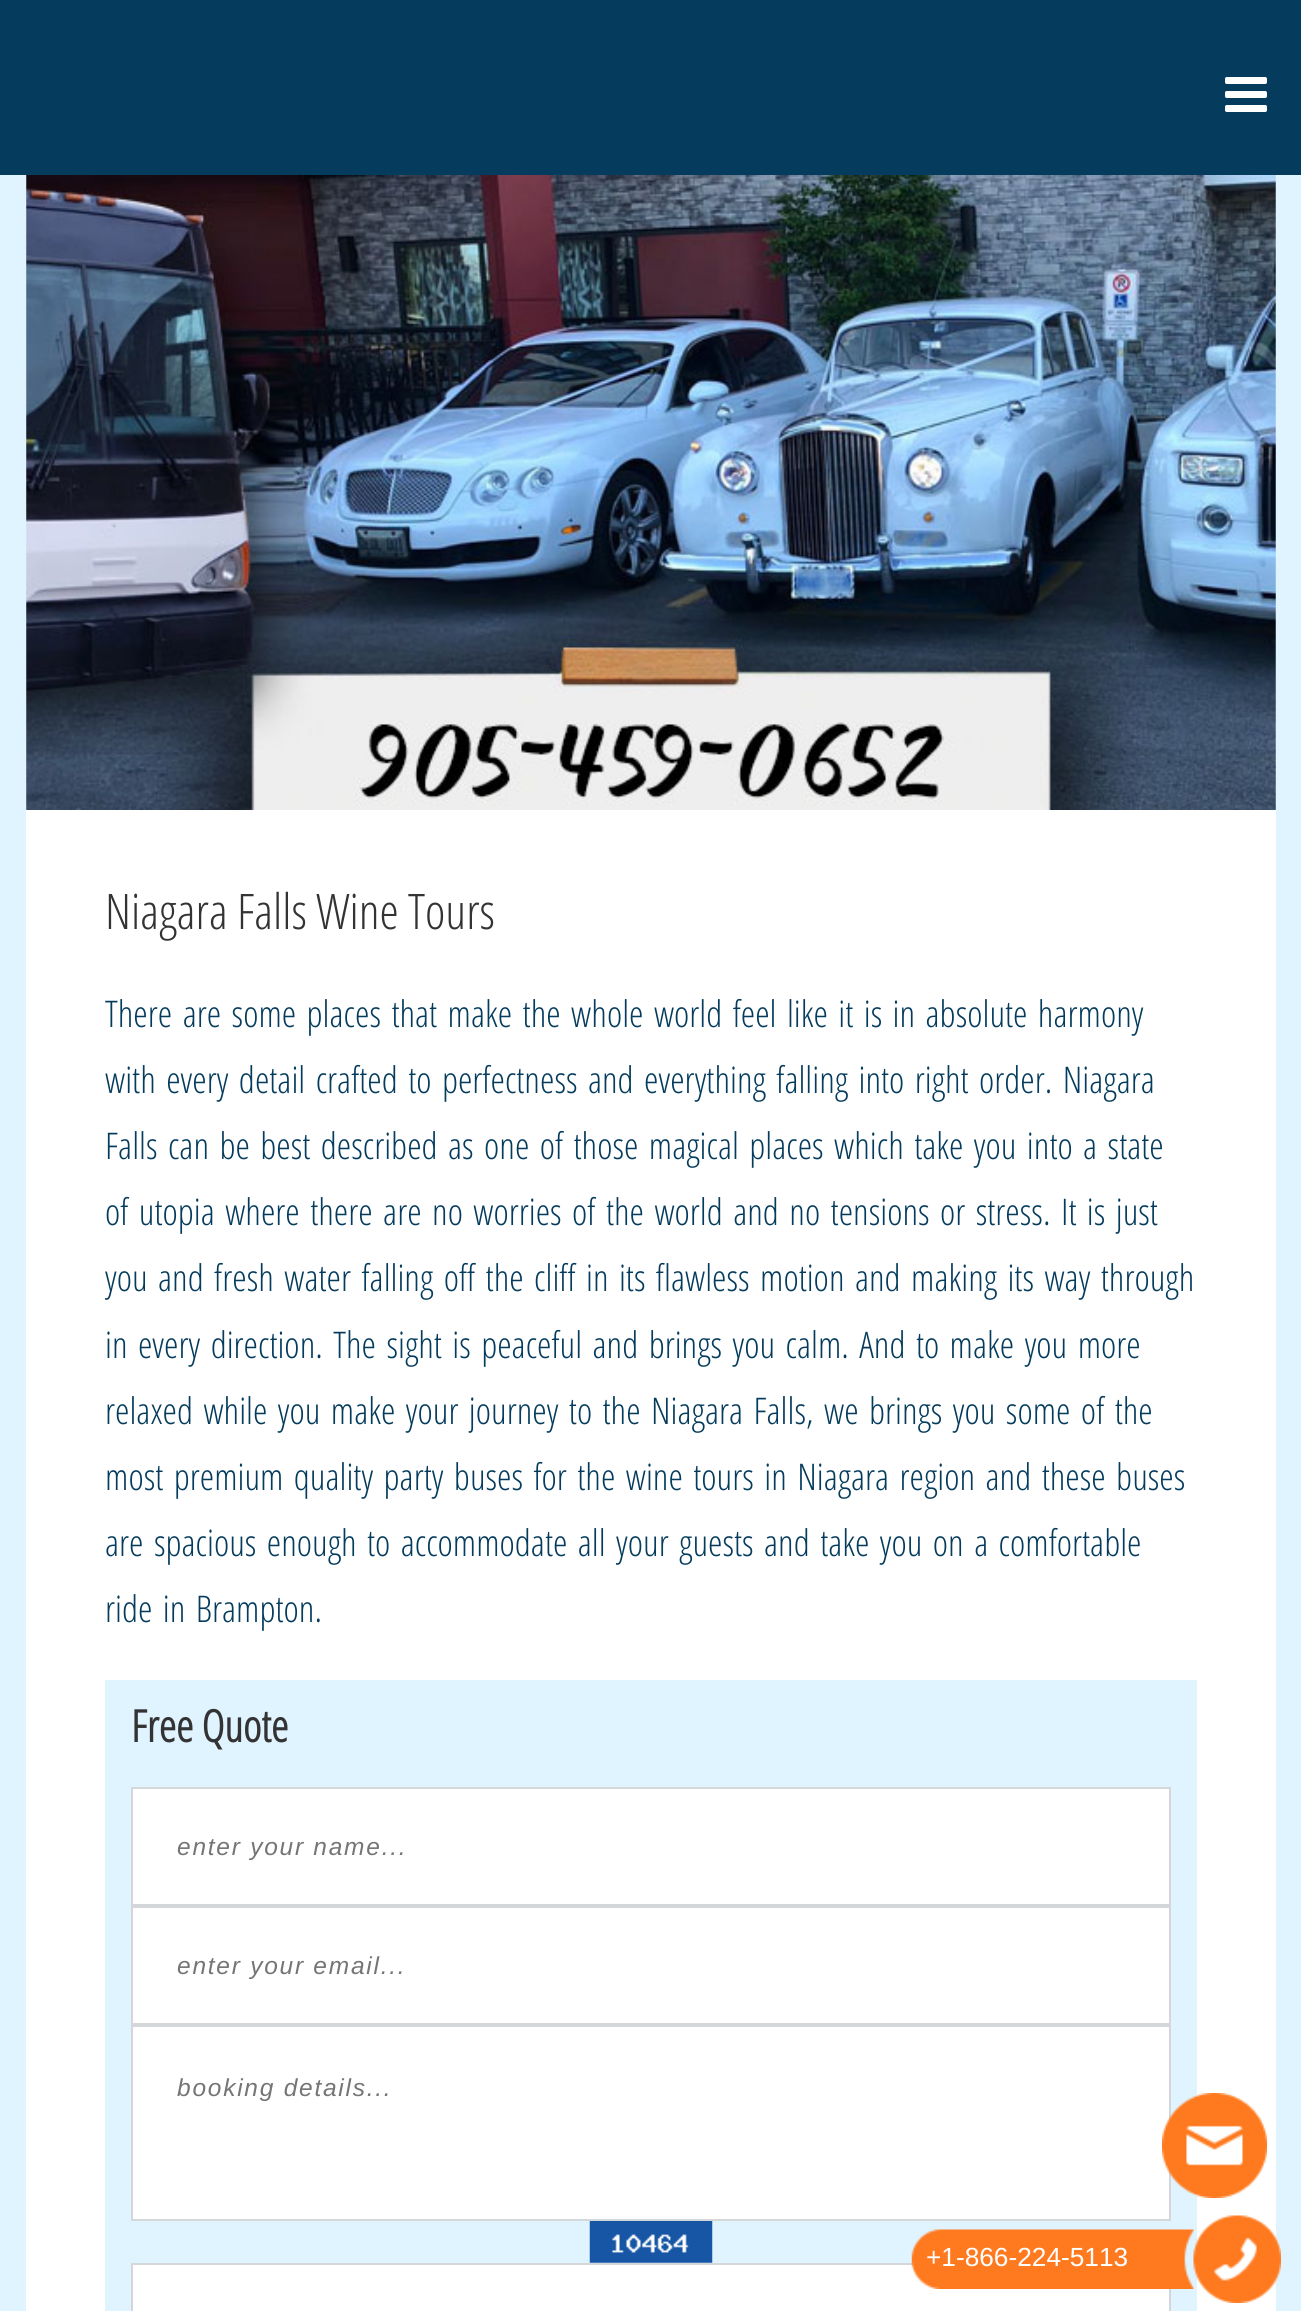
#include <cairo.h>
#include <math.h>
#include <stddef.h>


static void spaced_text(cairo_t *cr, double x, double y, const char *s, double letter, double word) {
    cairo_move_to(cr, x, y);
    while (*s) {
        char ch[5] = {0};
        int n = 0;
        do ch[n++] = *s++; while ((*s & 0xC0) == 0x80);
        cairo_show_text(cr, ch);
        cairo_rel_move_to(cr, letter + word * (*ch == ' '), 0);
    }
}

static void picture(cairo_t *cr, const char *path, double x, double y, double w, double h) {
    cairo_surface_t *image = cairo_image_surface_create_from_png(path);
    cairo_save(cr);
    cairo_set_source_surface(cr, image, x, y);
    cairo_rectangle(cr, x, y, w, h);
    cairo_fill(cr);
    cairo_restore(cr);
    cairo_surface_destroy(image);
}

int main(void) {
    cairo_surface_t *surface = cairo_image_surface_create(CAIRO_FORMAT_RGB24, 1301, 2311);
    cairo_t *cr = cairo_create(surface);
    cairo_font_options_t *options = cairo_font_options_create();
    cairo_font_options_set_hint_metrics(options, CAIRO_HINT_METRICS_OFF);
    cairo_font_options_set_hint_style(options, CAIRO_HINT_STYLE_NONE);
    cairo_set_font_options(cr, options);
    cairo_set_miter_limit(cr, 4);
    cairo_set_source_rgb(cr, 0.878, 0.957, 1);
    cairo_paint(cr);
    cairo_set_source_rgb(cr, 0.02, 0.231, 0.365);
    cairo_rectangle(cr, 0, 0, 1301, 175);
    cairo_fill(cr);
    picture(cr, "img1.png", 1225, 77, 42, 35);
    picture(cr, "img2.png", 26, 175, 1250, 635);
    cairo_set_source_rgb(cr, 1, 1, 1);
    cairo_rectangle(cr, 26, 810, 1250, 1501);
    cairo_fill(cr);
    cairo_select_font_face(cr, "Open Sans Condensed Light", CAIRO_FONT_SLANT_NORMAL, CAIRO_FONT_WEIGHT_NORMAL);
    cairo_set_font_size(cr, 49);
    cairo_set_source_rgb(cr, 0.2, 0.2, 0.2);
    cairo_move_to(cr, 105, 929);
    cairo_show_text(cr, "Niagara Falls Wine Tours");
    cairo_set_font_size(cr, 36.75);
    cairo_set_source_rgb(cr, 0.02, 0.235, 0.365);
    spaced_text(cr, 105, 1027, "There are some places that make the whole world feel like it is in absolute harmony", 0, 3.5);
    spaced_text(cr, 105, 1093, "with every detail crafted to perfectness and everything falling into right order. Niagara", 0, 3.5);
    spaced_text(cr, 105, 1159, "Falls can be best described as one of those magical places which take you into a state", 0, 3.5);
    spaced_text(cr, 105, 1225, "of utopia where there are no worries of the world and no tensions or stress. It is just", 0, 3.5);
    spaced_text(cr, 105, 1291, "you and fresh water falling off the cliff in its flawless motion and making its way through", 0, 3.5);
    spaced_text(cr, 105, 1358, "in every direction. The sight is peaceful and brings you calm. And to make you more", 0, 3.5);
    spaced_text(cr, 105, 1424, "relaxed while you make your journey to the Niagara Falls, we brings you some of the", 0, 3.5);
    spaced_text(cr, 105, 1490, "most premium quality party buses for the wine tours in Niagara region and these buses", 0, 3.5);
    spaced_text(cr, 105, 1556, "are spacious enough to accommodate all your guests and take you on a comfortable", 0, 3.5);
    spaced_text(cr, 105, 1622, "ride in Brampton.", 0, 3.5);
    cairo_set_source_rgb(cr, 0.878, 0.957, 1);
    cairo_rectangle(cr, 105, 1680, 1092, 631);
    cairo_fill(cr);
    cairo_select_font_face(cr, "Open Sans Condensed", CAIRO_FONT_SLANT_NORMAL, CAIRO_FONT_WEIGHT_BOLD);
    cairo_set_font_size(cr, 44);
    cairo_set_source_rgb(cr, 0.2, 0.2, 0.2);
    cairo_move_to(cr, 131, 1742);
    cairo_show_text(cr, "Free Quote");
    cairo_set_source_rgb(cr, 1, 1, 1);
    cairo_rectangle(cr, 132, 1788, 1038, 117);
    cairo_fill_preserve(cr);
    cairo_set_source_rgb(cr, 0.827, 0.843, 0.851);
    cairo_stroke(cr);
    cairo_select_font_face(cr, "Liberation Sans", CAIRO_FONT_SLANT_ITALIC, CAIRO_FONT_WEIGHT_NORMAL);
    cairo_set_font_size(cr, 24.5);
    cairo_set_source_rgb(cr, 0.459, 0.459, 0.459);
    spaced_text(cr, 177, 1855, "enter your name...", 1.75, 0);
    cairo_set_source_rgb(cr, 1, 1, 1);
    cairo_rectangle(cr, 132, 1907, 1038, 117);
    cairo_fill_preserve(cr);
    cairo_set_source_rgb(cr, 0.827, 0.843, 0.851);
    cairo_stroke(cr);
    cairo_set_source_rgb(cr, 0.459, 0.459, 0.459);
    spaced_text(cr, 177, 1974, "enter your email...", 1.75, 0);
    cairo_set_source_rgb(cr, 1, 1, 1);
    cairo_rectangle(cr, 132, 2026, 1038, 194);
    cairo_fill_preserve(cr);
    cairo_set_source_rgb(cr, 0.827, 0.843, 0.851);
    cairo_stroke(cr);
    cairo_set_source_rgb(cr, 0.459, 0.459, 0.459);
    spaced_text(cr, 177, 2096, "booking details...", 1.75, 0);
    picture(cr, "img3.png", 589, 2221, 124, 42);
    cairo_set_source_rgb(cr, 1, 1, 1);
    cairo_rectangle(cr, 132, 2264, 1038, 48);
    cairo_fill_preserve(cr);
    cairo_set_source_rgb(cr, 0.827, 0.843, 0.851);
    cairo_stroke(cr);
    picture(cr, "img4.png", 1162, 2093, 105, 105);
    picture(cr, "img6.png", 1193, 2215, 88, 88);
    picture(cr, "img5.png", 911, 2229, 283, 60);
    cairo_select_font_face(cr, "Liberation Sans", CAIRO_FONT_SLANT_NORMAL, CAIRO_FONT_WEIGHT_NORMAL);
    cairo_set_font_size(cr, 26.25);
    cairo_set_source_rgb(cr, 1, 1, 1);
    cairo_move_to(cr, 926, 2266);
    cairo_show_text(cr, "+1-866-224-5113");
    cairo_surface_write_to_png(surface, "page.png");
    cairo_font_options_destroy(options);
    cairo_destroy(cr);
    cairo_surface_destroy(surface);
    return 0;
}
